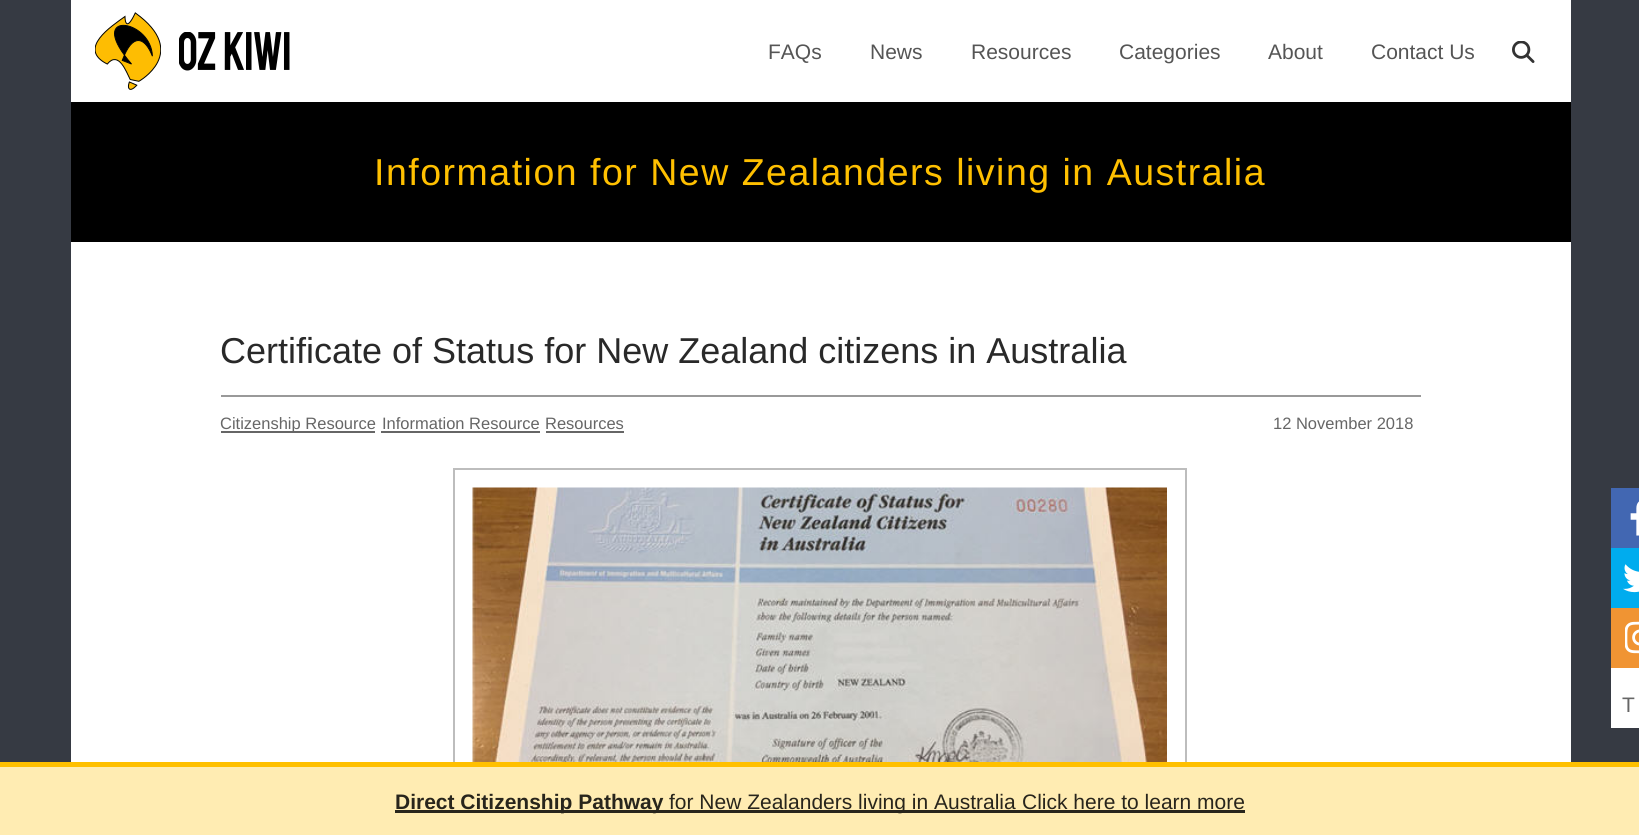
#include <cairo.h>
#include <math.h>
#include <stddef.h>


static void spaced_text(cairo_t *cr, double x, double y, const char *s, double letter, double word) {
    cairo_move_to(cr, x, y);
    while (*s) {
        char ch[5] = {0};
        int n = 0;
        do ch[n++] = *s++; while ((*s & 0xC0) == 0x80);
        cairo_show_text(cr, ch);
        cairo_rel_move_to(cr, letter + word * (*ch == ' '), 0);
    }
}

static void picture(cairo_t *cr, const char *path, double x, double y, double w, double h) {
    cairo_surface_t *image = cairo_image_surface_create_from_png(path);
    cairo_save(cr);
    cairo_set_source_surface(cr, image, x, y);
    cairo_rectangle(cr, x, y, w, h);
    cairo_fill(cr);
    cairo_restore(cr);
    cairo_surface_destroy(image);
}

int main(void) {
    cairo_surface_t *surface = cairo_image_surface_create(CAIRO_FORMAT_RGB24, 1639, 835);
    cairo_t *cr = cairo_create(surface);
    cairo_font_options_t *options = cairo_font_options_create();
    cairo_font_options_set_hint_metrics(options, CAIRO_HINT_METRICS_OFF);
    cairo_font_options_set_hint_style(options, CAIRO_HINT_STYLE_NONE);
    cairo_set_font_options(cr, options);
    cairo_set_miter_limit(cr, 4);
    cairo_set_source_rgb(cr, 0.212, 0.227, 0.263);
    cairo_paint(cr);
    cairo_set_source_rgb(cr, 1, 1, 1);
    cairo_rectangle(cr, 71, 0, 1500, 102);
    cairo_fill(cr);
    picture(cr, "img1.png", 95, 12, 66, 78);
    picture(cr, "img2.png", 179, 32, 111, 39);
    cairo_select_font_face(cr, "Liberation Sans", CAIRO_FONT_SLANT_NORMAL, CAIRO_FONT_WEIGHT_NORMAL);
    cairo_set_font_size(cr, 21);
    cairo_set_source_rgb(cr, 0.333, 0.333, 0.333);
    cairo_move_to(cr, 768, 59);
    cairo_show_text(cr, "FAQs");
    cairo_move_to(cr, 870, 59);
    cairo_show_text(cr, "News");
    cairo_move_to(cr, 971, 59);
    cairo_show_text(cr, "Resources");
    cairo_move_to(cr, 1119, 59);
    cairo_show_text(cr, "Categories");
    cairo_move_to(cr, 1268, 59);
    cairo_show_text(cr, "About");
    cairo_move_to(cr, 1371, 59);
    cairo_show_text(cr, "Contact Us");
    picture(cr, "img3.png", 1512, 41, 23, 22);
    cairo_set_source_rgb(cr, 0, 0, 0);
    cairo_rectangle(cr, 71, 102, 1500, 140);
    cairo_fill(cr);
    cairo_set_font_size(cr, 37.5);
    cairo_set_source_rgb(cr, 1, 0.753, 0);
    spaced_text(cr, 374, 185, "Information for New Zealanders living in Australia", 1.5, 0);
    cairo_set_source_rgb(cr, 1, 1, 1);
    cairo_rectangle(cr, 71, 242, 1500, 520);
    cairo_fill(cr);
    cairo_set_font_size(cr, 36);
    cairo_set_source_rgb(cr, 0.161, 0.161, 0.161);
    cairo_move_to(cr, 220, 363);
    cairo_show_text(cr, "Certificate of Status for New Zealand citizens in Australia");
    cairo_set_source_rgb(cr, 0.6, 0.6, 0.6);
    cairo_rectangle(cr, 221, 395, 1200, 2);
    cairo_fill(cr);
    cairo_set_source_rgb(cr, 0.4, 0.4, 0.4);
    cairo_rectangle(cr, 221, 431, 154, 2);
    cairo_fill(cr);
    cairo_set_font_size(cr, 16.5);
    cairo_move_to(cr, 220, 429);
    cairo_show_text(cr, "Citizenship Resource");
    cairo_move_to(cr, 382, 429);
    cairo_show_text(cr, "Information Resource");
    cairo_rectangle(cr, 381, 431, 159, 2);
    cairo_fill(cr);
    cairo_move_to(cr, 545, 429);
    cairo_show_text(cr, "Resources");
    cairo_rectangle(cr, 546, 431, 78, 2);
    cairo_fill(cr);
    cairo_move_to(cr, 1273, 429);
    cairo_show_text(cr, "12 November 2018");
    cairo_rectangle(cr, 454, 469, 732, 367);
    cairo_set_source_rgb(cr, 0.741, 0.741, 0.741);
    cairo_stroke(cr);
    picture(cr, "img4.png", 472, 487, 695, 275);
    cairo_set_source_rgb(cr, 0.259, 0.404, 0.698);
    cairo_rectangle(cr, 1611, 488, 28, 60);
    cairo_fill(cr);
    picture(cr, "img5.png", 1630, 501, 9, 35);
    cairo_set_source_rgb(cr, 0, 0.675, 0.933);
    cairo_rectangle(cr, 1611, 548, 28, 60);
    cairo_fill(cr);
    picture(cr, "img6.png", 1623, 564, 16, 29);
    cairo_set_source_rgb(cr, 0.941, 0.58, 0.2);
    cairo_rectangle(cr, 1611, 608, 28, 60);
    cairo_fill(cr);
    picture(cr, "img7.png", 1625, 621, 14, 33);
    cairo_set_source_rgb(cr, 1, 1, 1);
    cairo_rectangle(cr, 1611, 668, 28, 60);
    cairo_fill(cr);
    cairo_set_font_size(cr, 21);
    cairo_set_source_rgb(cr, 0.4, 0.4, 0.4);
    cairo_move_to(cr, 1622, 712);
    cairo_show_text(cr, "T");
    cairo_set_source_rgb(cr, 1, 0.925, 0.698);
    cairo_rectangle(cr, 0, 767, 1639, 68);
    cairo_fill(cr);
    cairo_set_source_rgb(cr, 1, 0.753, 0);
    cairo_rectangle(cr, 0, 762, 1639, 5);
    cairo_fill(cr);
    cairo_set_source_rgb(cr, 0.161, 0.149, 0.11);
    cairo_rectangle(cr, 395, 810, 268, 3);
    cairo_fill(cr);
    cairo_select_font_face(cr, "Liberation Sans", CAIRO_FONT_SLANT_NORMAL, CAIRO_FONT_WEIGHT_BOLD);
    cairo_set_source_rgb(cr, 0.157, 0.145, 0.11);
    cairo_move_to(cr, 395, 809);
    cairo_show_text(cr, "Direct Citizenship Pathway");
    cairo_set_source_rgb(cr, 0.161, 0.149, 0.11);
    cairo_rectangle(cr, 663, 810, 582, 3);
    cairo_fill(cr);
    cairo_select_font_face(cr, "Liberation Sans", CAIRO_FONT_SLANT_NORMAL, CAIRO_FONT_WEIGHT_NORMAL);
    cairo_set_source_rgb(cr, 0.157, 0.145, 0.11);
    cairo_move_to(cr, 669, 809);
    cairo_show_text(cr, "for New Zealanders living in Australia");
    cairo_move_to(cr, 1022, 809);
    cairo_show_text(cr, "Click here to learn more");
    cairo_surface_write_to_png(surface, "page.png");
    cairo_font_options_destroy(options);
    cairo_destroy(cr);
    cairo_surface_destroy(surface);
    return 0;
}
